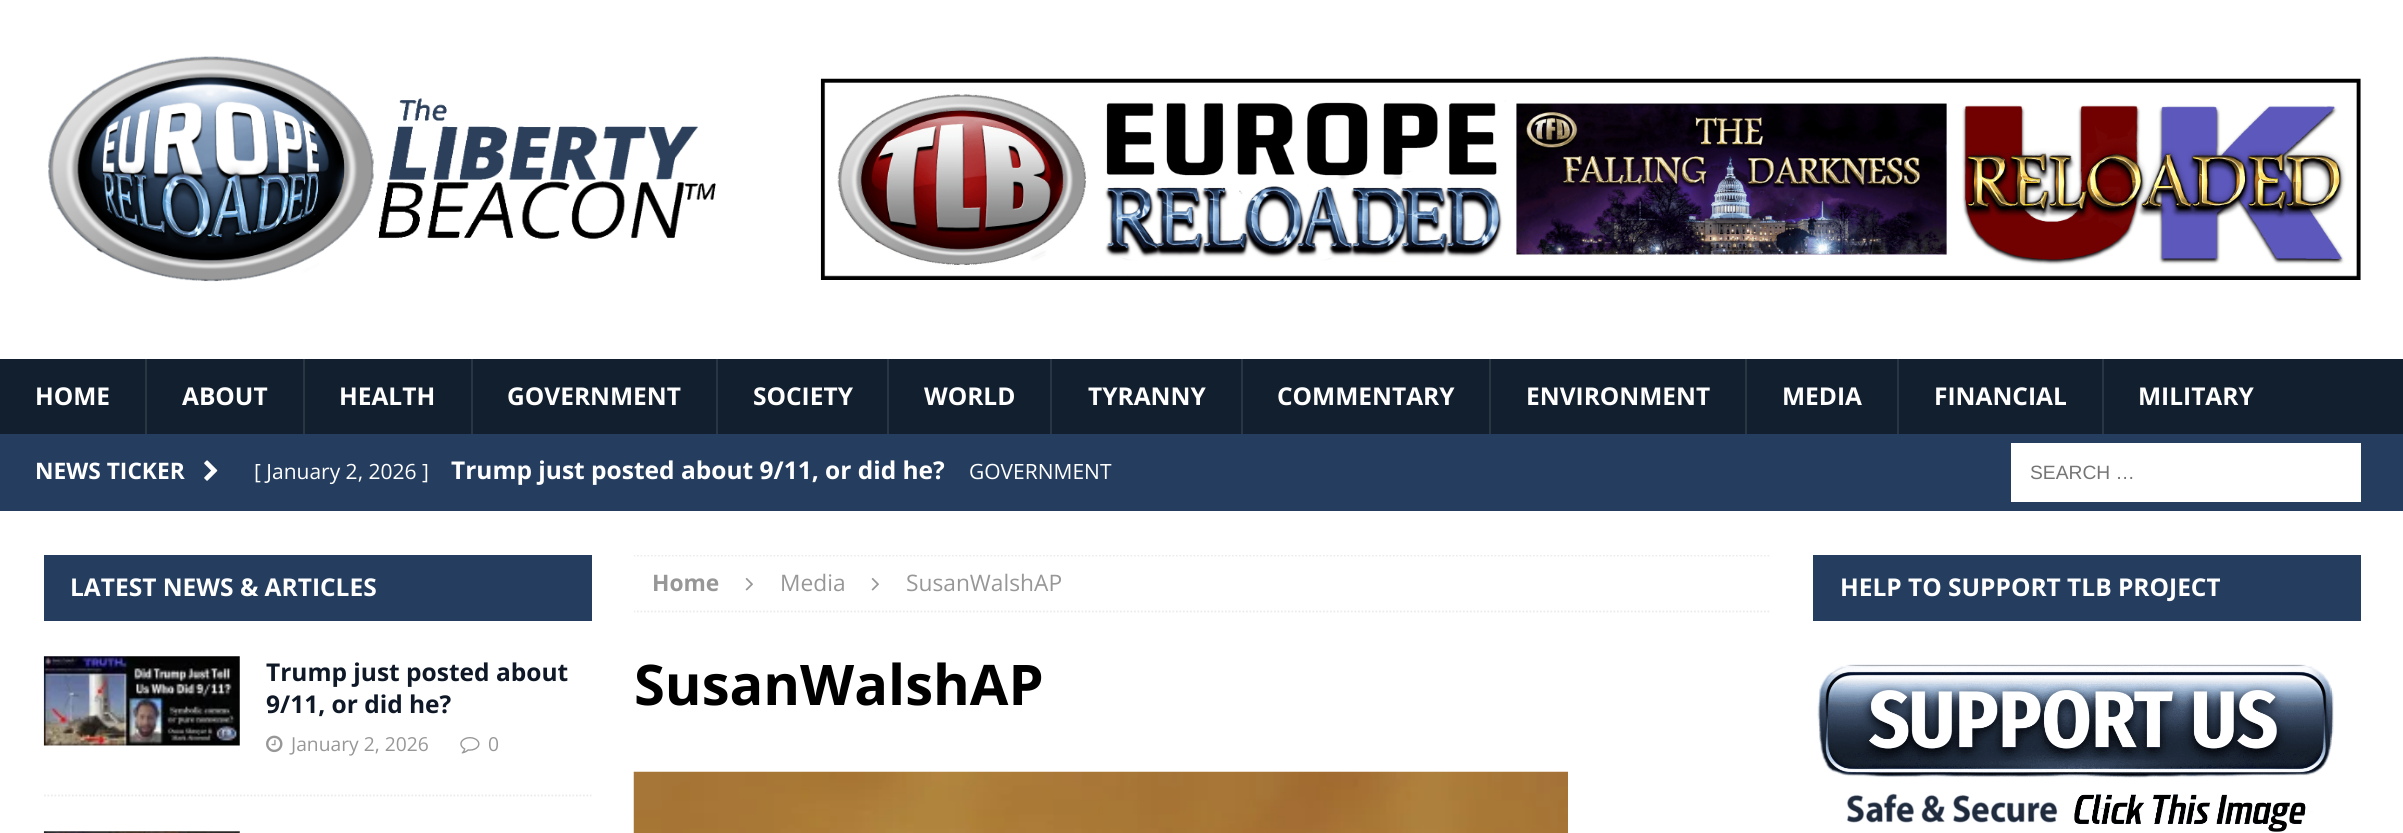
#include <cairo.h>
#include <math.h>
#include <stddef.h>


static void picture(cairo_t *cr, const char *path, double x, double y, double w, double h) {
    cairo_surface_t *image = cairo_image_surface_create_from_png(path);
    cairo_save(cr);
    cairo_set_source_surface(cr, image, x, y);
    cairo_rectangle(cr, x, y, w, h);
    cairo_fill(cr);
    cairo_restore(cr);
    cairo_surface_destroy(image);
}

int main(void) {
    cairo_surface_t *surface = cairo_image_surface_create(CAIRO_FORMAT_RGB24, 2403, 833);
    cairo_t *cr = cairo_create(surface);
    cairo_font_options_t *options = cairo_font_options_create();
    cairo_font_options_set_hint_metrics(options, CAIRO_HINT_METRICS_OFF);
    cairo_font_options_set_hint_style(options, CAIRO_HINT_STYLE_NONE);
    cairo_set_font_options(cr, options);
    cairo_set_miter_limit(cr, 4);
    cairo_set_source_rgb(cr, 1, 1, 1);
    cairo_paint(cr);
    picture(cr, "img1.png", 48, 56, 668, 226);
    picture(cr, "img2.png", 820, 78, 1541, 202);
    cairo_set_source_rgb(cr, 0.071, 0.122, 0.184);
    cairo_rectangle(cr, 0, 359, 2403, 75);
    cairo_fill(cr);
    cairo_select_font_face(cr, "Open Sans", CAIRO_FONT_SLANT_NORMAL, CAIRO_FONT_WEIGHT_BOLD);
    cairo_set_font_size(cr, 24.5);
    cairo_set_source_rgb(cr, 1, 1, 1);
    cairo_move_to(cr, 35, 405);
    cairo_show_text(cr, "HOME");
    cairo_set_source_rgb(cr, 0.165, 0.208, 0.267);
    cairo_rectangle(cr, 145, 359, 2, 75);
    cairo_fill(cr);
    cairo_set_source_rgb(cr, 1, 1, 1);
    cairo_move_to(cr, 182, 405);
    cairo_show_text(cr, "ABOUT");
    cairo_set_source_rgb(cr, 0.165, 0.208, 0.267);
    cairo_rectangle(cr, 303, 359, 2, 75);
    cairo_fill(cr);
    cairo_set_source_rgb(cr, 1, 1, 1);
    cairo_move_to(cr, 339, 405);
    cairo_show_text(cr, "HEALTH");
    cairo_set_source_rgb(cr, 0.165, 0.208, 0.267);
    cairo_rectangle(cr, 471, 359, 2, 75);
    cairo_fill(cr);
    cairo_set_source_rgb(cr, 1, 1, 1);
    cairo_move_to(cr, 507, 405);
    cairo_show_text(cr, "GOVERNMENT");
    cairo_set_source_rgb(cr, 0.165, 0.208, 0.267);
    cairo_rectangle(cr, 716, 359, 2, 75);
    cairo_fill(cr);
    cairo_set_source_rgb(cr, 1, 1, 1);
    cairo_move_to(cr, 753, 405);
    cairo_show_text(cr, "SOCIETY");
    cairo_set_source_rgb(cr, 0.165, 0.208, 0.267);
    cairo_rectangle(cr, 887, 359, 2, 75);
    cairo_fill(cr);
    cairo_set_source_rgb(cr, 1, 1, 1);
    cairo_move_to(cr, 924, 405);
    cairo_show_text(cr, "WORLD");
    cairo_set_source_rgb(cr, 0.165, 0.208, 0.267);
    cairo_rectangle(cr, 1050, 359, 2, 75);
    cairo_fill(cr);
    cairo_set_source_rgb(cr, 1, 1, 1);
    cairo_move_to(cr, 1088, 405);
    cairo_show_text(cr, "TYRANNY");
    cairo_set_source_rgb(cr, 0.165, 0.208, 0.267);
    cairo_rectangle(cr, 1241, 359, 2, 75);
    cairo_fill(cr);
    cairo_set_source_rgb(cr, 1, 1, 1);
    cairo_move_to(cr, 1277, 405);
    cairo_show_text(cr, "COMMENTARY");
    cairo_set_source_rgb(cr, 0.165, 0.208, 0.267);
    cairo_rectangle(cr, 1489, 359, 2, 75);
    cairo_fill(cr);
    cairo_set_source_rgb(cr, 1, 1, 1);
    cairo_move_to(cr, 1526, 405);
    cairo_show_text(cr, "ENVIRONMENT");
    cairo_set_source_rgb(cr, 0.165, 0.208, 0.267);
    cairo_rectangle(cr, 1745, 359, 2, 75);
    cairo_fill(cr);
    cairo_set_source_rgb(cr, 1, 1, 1);
    cairo_move_to(cr, 1782, 405);
    cairo_show_text(cr, "MEDIA");
    cairo_set_source_rgb(cr, 0.165, 0.208, 0.267);
    cairo_rectangle(cr, 1897, 359, 2, 75);
    cairo_fill(cr);
    cairo_set_source_rgb(cr, 1, 1, 1);
    cairo_move_to(cr, 1934, 405);
    cairo_show_text(cr, "FINANCIAL");
    cairo_set_source_rgb(cr, 0.165, 0.208, 0.267);
    cairo_rectangle(cr, 2102, 359, 2, 75);
    cairo_fill(cr);
    cairo_set_source_rgb(cr, 1, 1, 1);
    cairo_move_to(cr, 2138, 405);
    cairo_show_text(cr, "MILITARY");
    cairo_set_source_rgb(cr, 0.145, 0.243, 0.373);
    cairo_rectangle(cr, 0, 434, 2403, 77);
    cairo_fill(cr);
    cairo_set_font_size(cr, 22.75);
    cairo_set_source_rgb(cr, 1, 1, 1);
    cairo_move_to(cr, 35, 479);
    cairo_show_text(cr, "NEWS TICKER");
    picture(cr, "img3.png", 204, 460, 14, 21);
    cairo_select_font_face(cr, "Open Sans", CAIRO_FONT_SLANT_NORMAL, CAIRO_FONT_WEIGHT_NORMAL);
    cairo_set_font_size(cr, 21);
    cairo_move_to(cr, 254, 479);
    cairo_show_text(cr, "[ January 2, 2026 ]");
    cairo_select_font_face(cr, "Open Sans", CAIRO_FONT_SLANT_NORMAL, CAIRO_FONT_WEIGHT_BOLD);
    cairo_set_font_size(cr, 24.5);
    cairo_move_to(cr, 451, 479);
    cairo_show_text(cr, "Trump just posted about 9/11, or did he?");
    cairo_select_font_face(cr, "Open Sans", CAIRO_FONT_SLANT_NORMAL, CAIRO_FONT_WEIGHT_NORMAL);
    cairo_set_font_size(cr, 21);
    cairo_move_to(cr, 969, 479);
    cairo_show_text(cr, "GOVERNMENT");
    cairo_rectangle(cr, 2011, 443, 350, 59);
    cairo_fill(cr);
    cairo_select_font_face(cr, "Liberation Sans", CAIRO_FONT_SLANT_NORMAL, CAIRO_FONT_WEIGHT_NORMAL);
    cairo_set_font_size(cr, 19.25);
    cairo_set_source_rgb(cr, 0.459, 0.459, 0.459);
    cairo_move_to(cr, 2030, 479);
    cairo_show_text(cr, "SEARCH …");
    cairo_set_source_rgb(cr, 0.145, 0.243, 0.373);
    cairo_rectangle(cr, 44, 555, 548, 66);
    cairo_fill(cr);
    cairo_select_font_face(cr, "Open Sans", CAIRO_FONT_SLANT_NORMAL, CAIRO_FONT_WEIGHT_BOLD);
    cairo_set_font_size(cr, 24.5);
    cairo_set_source_rgb(cr, 1, 1, 1);
    cairo_move_to(cr, 70, 596);
    cairo_show_text(cr, "LATEST NEWS & ARTICLES");
    cairo_new_path(cr);
    cairo_move_to(cr, 44, 795.5);
    cairo_line_to(cr, 591.5, 795.5);
    cairo_set_source_rgb(cr, 0.922, 0.922, 0.922);
    cairo_set_line_width(cr, 1.8);
    cairo_set_dash(cr, (double[]){1.75, 1.75}, 2, 0);
    cairo_stroke(cr);
    picture(cr, "img4.png", 43, 656, 197, 90);
    cairo_set_source_rgb(cr, 0.055, 0.094, 0.149);
    cairo_move_to(cr, 266, 681);
    cairo_show_text(cr, "Trump just posted about");
    cairo_move_to(cr, 266, 713);
    cairo_show_text(cr, "9/11, or did he?");
    picture(cr, "img5.png", 266, 735, 17, 18);
    cairo_select_font_face(cr, "Open Sans", CAIRO_FONT_SLANT_NORMAL, CAIRO_FONT_WEIGHT_NORMAL);
    cairo_set_font_size(cr, 19.25);
    cairo_set_source_rgb(cr, 0.592, 0.592, 0.592);
    cairo_move_to(cr, 291, 751);
    cairo_show_text(cr, "January 2, 2026");
    picture(cr, "img6.png", 460, 737, 20, 17);
    cairo_move_to(cr, 488, 751);
    cairo_show_text(cr, "0");
    picture(cr, "img7.png", 43, 831, 197, 2);
    cairo_save(cr);
    cairo_rectangle(cr, 634, 555, 1137, 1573);
    cairo_clip(cr);
    cairo_new_path(cr);
    cairo_move_to(cr, 633.5, 555.5);
    cairo_line_to(cr, 1771, 555.5);
    cairo_set_source_rgb(cr, 0.922, 0.922, 0.922);
    cairo_stroke(cr);
    cairo_new_path(cr);
    cairo_move_to(cr, 633.5, 611.5);
    cairo_line_to(cr, 1771, 611.5);
    cairo_stroke(cr);
    cairo_restore(cr);
    cairo_select_font_face(cr, "Open Sans", CAIRO_FONT_SLANT_NORMAL, CAIRO_FONT_WEIGHT_BOLD);
    cairo_set_font_size(cr, 22.75);
    cairo_move_to(cr, 652, 591);
    cairo_show_text(cr, "Home");
    picture(cr, "img8.png", 745, 577, 8, 14);
    cairo_select_font_face(cr, "Open Sans", CAIRO_FONT_SLANT_NORMAL, CAIRO_FONT_WEIGHT_NORMAL);
    cairo_move_to(cr, 780, 591);
    cairo_show_text(cr, "Media");
    picture(cr, "img8.png", 871, 577, 8, 14);
    cairo_move_to(cr, 906, 591);
    cairo_show_text(cr, "SusanWalshAP");
    cairo_select_font_face(cr, "Open Sans", CAIRO_FONT_SLANT_NORMAL, CAIRO_FONT_WEIGHT_BOLD);
    cairo_set_font_size(cr, 56);
    cairo_set_source_rgb(cr, 0, 0, 0);
    cairo_move_to(cr, 634, 705);
    cairo_show_text(cr, "SusanWalshAP");
    picture(cr, "img9.png", 633, 771, 935, 62);
    cairo_set_source_rgb(cr, 0.145, 0.243, 0.373);
    cairo_rectangle(cr, 1813, 555, 548, 66);
    cairo_fill(cr);
    cairo_set_font_size(cr, 24.5);
    cairo_set_source_rgb(cr, 1, 1, 1);
    cairo_move_to(cr, 1840, 596);
    cairo_show_text(cr, "HELP TO SUPPORT TLB PROJECT");
    picture(cr, "img10.png", 1817, 664, 517, 168);
    cairo_surface_write_to_png(surface, "page.png");
    cairo_font_options_destroy(options);
    cairo_destroy(cr);
    cairo_surface_destroy(surface);
    return 0;
}
